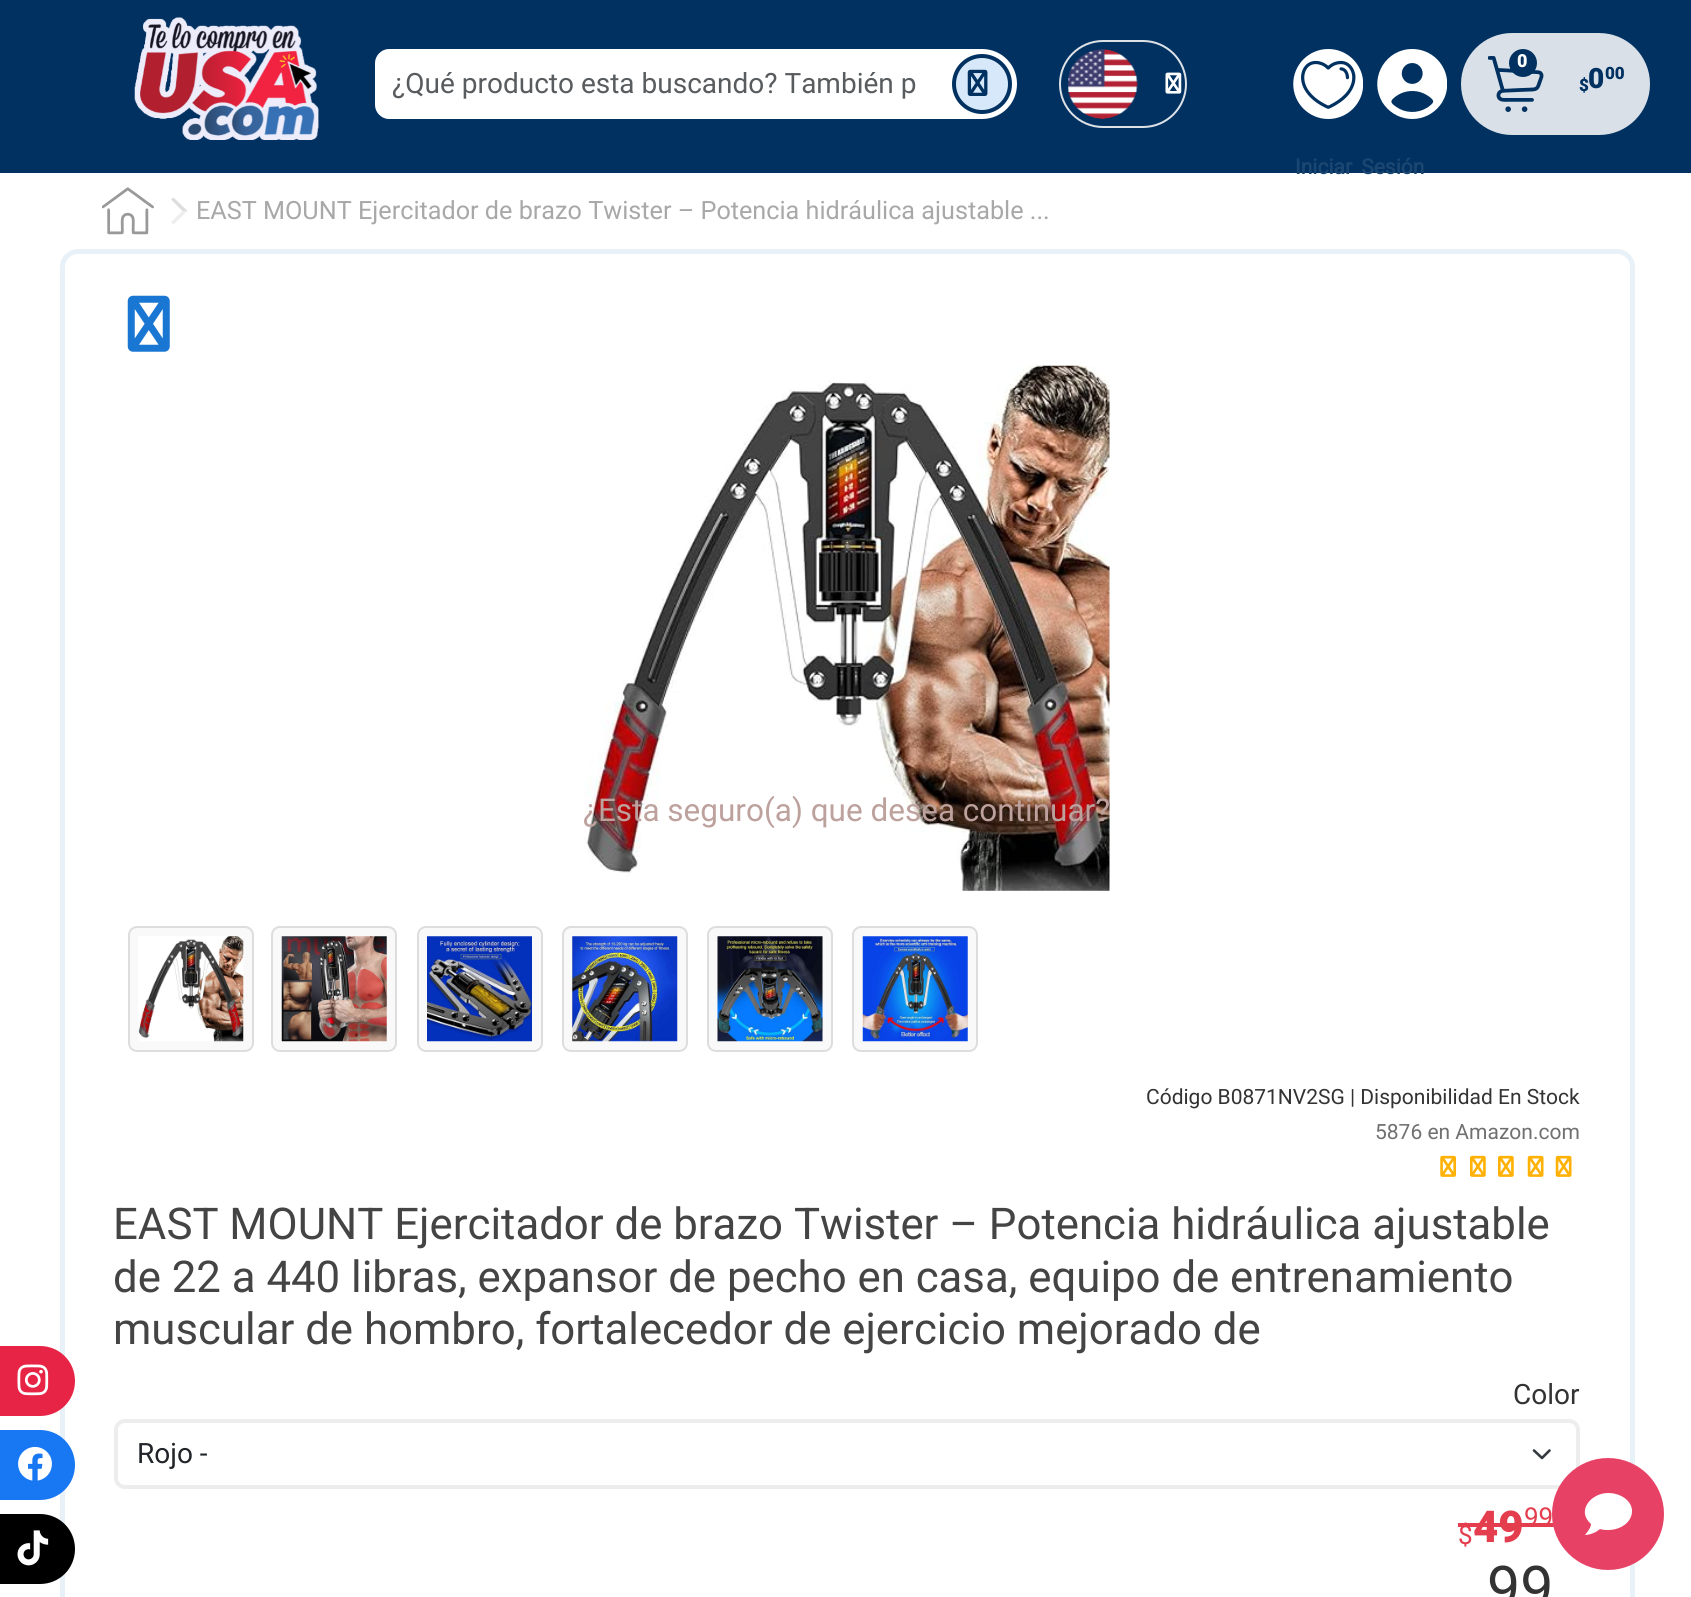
#include <cairo.h>
#include <math.h>
#include <stddef.h>


static void spaced_text(cairo_t *cr, double x, double y, const char *s, double letter, double word) {
    cairo_move_to(cr, x, y);
    while (*s) {
        char ch[5] = {0};
        int n = 0;
        do ch[n++] = *s++; while ((*s & 0xC0) == 0x80);
        cairo_show_text(cr, ch);
        cairo_rel_move_to(cr, letter + word * (*ch == ' '), 0);
    }
}

static void round_rect(cairo_t *cr, double x, double y, double w, double h, double r) {
    cairo_new_sub_path(cr);
    cairo_arc(cr, x + w - r, y + h - r, r, 0, M_PI / 2);
    cairo_arc(cr, x + r, y + h - r, r, M_PI / 2, M_PI);
    cairo_arc(cr, x + r, y + r, r, M_PI, 1.5 * M_PI);
    cairo_arc(cr, x + w - r, y + r, r, 1.5 * M_PI, 2 * M_PI);
    cairo_close_path(cr);
}

static void picture(cairo_t *cr, const char *path, double x, double y, double w, double h) {
    cairo_surface_t *image = cairo_image_surface_create_from_png(path);
    cairo_save(cr);
    cairo_set_source_surface(cr, image, x, y);
    cairo_rectangle(cr, x, y, w, h);
    cairo_fill(cr);
    cairo_restore(cr);
    cairo_surface_destroy(image);
}

int main(void) {
    cairo_surface_t *surface = cairo_image_surface_create(CAIRO_FORMAT_RGB24, 1691, 1597);
    cairo_t *cr = cairo_create(surface);
    cairo_font_options_t *options = cairo_font_options_create();
    cairo_font_options_set_hint_metrics(options, CAIRO_HINT_METRICS_OFF);
    cairo_font_options_set_hint_style(options, CAIRO_HINT_STYLE_NONE);
    cairo_set_font_options(cr, options);
    cairo_set_miter_limit(cr, 4);
    cairo_set_source_rgb(cr, 1, 1, 1);
    cairo_paint(cr);
    cairo_set_source_rgb(cr, 0, 0.192, 0.38);
    cairo_rectangle(cr, 0, 0, 1691, 173);
    cairo_fill(cr);
    picture(cr, "img1.png", 134, 17, 185, 123);
    cairo_set_source_rgb(cr, 1, 1, 1);
    cairo_new_path(cr);
    cairo_move_to(cr, 389, 49);
    cairo_line_to(cr, 935, 49);
    cairo_line_to(cr, 935, 119);
    cairo_line_to(cr, 389, 119);
    cairo_curve_to(cr, 381.5, 119, 375, 112.5, 375, 105);
    cairo_line_to(cr, 375, 63);
    cairo_curve_to(cr, 375, 55.5, 381.5, 49, 389, 49);
    cairo_close_path(cr);
    cairo_fill(cr);
    cairo_select_font_face(cr, "Roboto", CAIRO_FONT_SLANT_NORMAL, CAIRO_FONT_WEIGHT_NORMAL);
    cairo_set_font_size(cr, 28);
    cairo_set_source_rgb(cr, 0.349, 0.361, 0.373);
    cairo_move_to(cr, 392, 93);
    cairo_show_text(cr, "¿Qué producto esta buscando? También p");
    cairo_set_source_rgb(cr, 1, 1, 1);
    cairo_new_path(cr);
    cairo_move_to(cr, 933, 49);
    cairo_line_to(cr, 982, 49);
    cairo_curve_to(cr, 1001.5, 49, 1017, 64.5, 1017, 84);
    cairo_curve_to(cr, 1017, 103.5, 1001.5, 119, 982, 119);
    cairo_line_to(cr, 933, 119);
    cairo_close_path(cr);
    cairo_fill(cr);
    cairo_set_source_rgb(cr, 0.839, 0.91, 0.976);
    cairo_arc(cr, 982, 84, 28, 0, 2 * M_PI);
    cairo_fill_preserve(cr);
    cairo_set_source_rgb(cr, 0, 0.192, 0.38);
    cairo_set_line_width(cr, 4);
    cairo_stroke(cr);
    picture(cr, "img2.png", 967, 69, 21, 27);
    round_rect(cr, 1060, 41, 126, 86, 43);
    cairo_set_source_rgb(cr, 0.871, 0.886, 0.902);
    cairo_set_line_width(cr, 2);
    cairo_stroke(cr);
    picture(cr, "img3.png", 1068, 49, 70, 70);
    picture(cr, "img4.png", 1165, 72, 17, 22);
    cairo_set_source_rgb(cr, 0.851, 0.878, 0.906);
    round_rect(cr, 1461, 33, 189, 102, 51);
    cairo_fill(cr);
    picture(cr, "img5.png", 1488, 56, 56, 56);
    cairo_set_source_rgb(cr, 0, 0.192, 0.38);
    cairo_arc(cr, 1523, 63, 14, 0, 2 * M_PI);
    cairo_fill(cr);
    cairo_select_font_face(cr, "Roboto Black", CAIRO_FONT_SLANT_NORMAL, CAIRO_FONT_WEIGHT_NORMAL);
    cairo_set_font_size(cr, 18);
    cairo_set_source_rgb(cr, 1, 1, 1);
    cairo_move_to(cr, 1517, 67);
    cairo_show_text(cr, "0");
    cairo_set_font_size(cr, 17);
    cairo_set_source_rgb(cr, 0, 0.192, 0.38);
    cairo_move_to(cr, 1579, 91);
    cairo_show_text(cr, "$");
    cairo_set_font_size(cr, 28);
    cairo_move_to(cr, 1588, 88);
    cairo_show_text(cr, "0");
    cairo_set_font_size(cr, 17);
    cairo_move_to(cr, 1605, 79);
    cairo_show_text(cr, "00");
    picture(cr, "img6.png", 1293, 49, 70, 70);
    picture(cr, "img7.png", 1377, 49, 70, 70);
    cairo_select_font_face(cr, "Roboto", CAIRO_FONT_SLANT_NORMAL, CAIRO_FONT_WEIGHT_BOLD);
    cairo_set_font_size(cr, 21);
    cairo_set_source_rgb(cr, 0.102, 0.275, 0.443);
    spaced_text(cr, 1295, 174, "Iniciar Sesión", 0, 4);
    picture(cr, "img8.png", 102, 187, 52, 48);
    cairo_set_source_rgb(cr, 0.867, 0.867, 0.867);
    cairo_new_path(cr);
    cairo_move_to(cr, 173.5, 197.5);
    cairo_line_to(cr, 187.5, 211);
    cairo_line_to(cr, 182.5, 211);
    cairo_line_to(cr, 171, 199.5);
    cairo_close_path(cr);
    cairo_fill(cr);
    cairo_set_source_rgb(cr, 0.933, 0.933, 0.933);
    cairo_new_path(cr);
    cairo_move_to(cr, 187.5, 211);
    cairo_line_to(cr, 173.5, 224.5);
    cairo_line_to(cr, 171, 222);
    cairo_line_to(cr, 182.5, 211);
    cairo_close_path(cr);
    cairo_fill(cr);
    cairo_select_font_face(cr, "Roboto", CAIRO_FONT_SLANT_NORMAL, CAIRO_FONT_WEIGHT_NORMAL);
    cairo_set_font_size(cr, 25.2);
    cairo_set_source_rgb(cr, 0.663, 0.659, 0.659);
    cairo_move_to(cr, 196, 219);
    cairo_show_text(cr, "EAST MOUNT Ejercitador de brazo Twister – Potencia hidráulica ajustable ...");
    round_rect(cr, 62.5, 251.5, 1570, 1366, 15.5);
    cairo_set_source_rgb(cr, 0.906, 0.945, 0.965);
    cairo_set_line_width(cr, 5);
    cairo_stroke(cr);
    picture(cr, "img9.png", 127, 295, 43, 57);
    picture(cr, "img10.png", 584, 365, 526, 526);
    cairo_set_source_rgb(cr, 0.976, 0.976, 0.976);
    round_rect(cr, 129, 927, 124, 124, 8);
    cairo_fill_preserve(cr);
    cairo_set_source_rgb(cr, 0.867, 0.867, 0.867);
    cairo_set_line_width(cr, 2);
    cairo_stroke(cr);
    picture(cr, "img11.png", 138, 936, 106, 106);
    cairo_set_source_rgb(cr, 0.976, 0.976, 0.976);
    round_rect(cr, 272, 927, 124, 124, 8);
    cairo_fill_preserve(cr);
    cairo_set_source_rgb(cr, 0.867, 0.867, 0.867);
    cairo_stroke(cr);
    picture(cr, "img12.png", 281, 936, 106, 106);
    cairo_set_source_rgb(cr, 0.976, 0.976, 0.976);
    round_rect(cr, 418, 927, 124, 124, 8);
    cairo_fill_preserve(cr);
    cairo_set_source_rgb(cr, 0.867, 0.867, 0.867);
    cairo_stroke(cr);
    picture(cr, "img13.png", 427, 936, 105, 106);
    cairo_set_source_rgb(cr, 0.976, 0.976, 0.976);
    round_rect(cr, 563, 927, 124, 124, 8);
    cairo_fill_preserve(cr);
    cairo_set_source_rgb(cr, 0.867, 0.867, 0.867);
    cairo_stroke(cr);
    picture(cr, "img14.png", 572, 936, 106, 106);
    cairo_set_source_rgb(cr, 0.976, 0.976, 0.976);
    round_rect(cr, 708, 927, 124, 124, 8);
    cairo_fill_preserve(cr);
    cairo_set_source_rgb(cr, 0.867, 0.867, 0.867);
    cairo_stroke(cr);
    picture(cr, "img15.png", 717, 936, 106, 106);
    cairo_set_source_rgb(cr, 0.976, 0.976, 0.976);
    round_rect(cr, 853, 927, 124, 124, 8);
    cairo_fill_preserve(cr);
    cairo_set_source_rgb(cr, 0.867, 0.867, 0.867);
    cairo_stroke(cr);
    picture(cr, "img16.png", 862, 936, 106, 106);
    cairo_set_font_size(cr, 21);
    cairo_set_source_rgb(cr, 0.2, 0.2, 0.2);
    cairo_move_to(cr, 1146, 1104);
    cairo_show_text(cr, "Código B0871NV2SG | Disponibilidad En Stock");
    cairo_set_source_rgb(cr, 0.439, 0.439, 0.439);
    cairo_move_to(cr, 1375, 1139);
    cairo_show_text(cr, "5876 en Amazon.com");
    picture(cr, "img17.png", 1440, 1155, 16, 22);
    picture(cr, "img18.png", 1470, 1155, 16, 22);
    picture(cr, "img18.png", 1498, 1155, 16, 22);
    picture(cr, "img19.png", 1527, 1155, 17, 22);
    picture(cr, "img19.png", 1555, 1155, 17, 22);
    cairo_set_font_size(cr, 43.75);
    cairo_set_source_rgb(cr, 0.267, 0.267, 0.267);
    cairo_move_to(cr, 113, 1239);
    cairo_show_text(cr, "EAST MOUNT Ejercitador de brazo Twister – Potencia hidráulica ajustable");
    cairo_move_to(cr, 113, 1292);
    cairo_show_text(cr, "de 22 a 440 libras, expansor de pecho en casa, equipo de entrenamiento");
    cairo_move_to(cr, 113, 1344);
    cairo_show_text(cr, "muscular de hombro, fortalecedor de ejercicio mejorado de");
    cairo_set_font_size(cr, 28);
    cairo_set_source_rgb(cr, 0.2, 0.2, 0.2);
    cairo_move_to(cr, 1513, 1404);
    cairo_show_text(cr, "Color");
    cairo_new_path(cr);
    cairo_move_to(cr, 1534, 1450.5);
    cairo_line_to(cr, 1542, 1458);
    cairo_line_to(cr, 1549.5, 1450.5);
    cairo_set_source_rgb(cr, 0.204, 0.227, 0.251);
    cairo_set_line_width(cr, 2.6);
    cairo_set_line_cap(cr, CAIRO_LINE_CAP_ROUND);
    cairo_set_line_join(cr, CAIRO_LINE_JOIN_ROUND);
    cairo_stroke(cr);
    round_rect(cr, 116, 1421, 1462, 66, 9);
    cairo_set_source_rgb(cr, 0.929, 0.929, 0.929);
    cairo_set_line_width(cr, 4);
    cairo_set_line_cap(cr, CAIRO_LINE_CAP_BUTT);
    cairo_set_line_join(cr, CAIRO_LINE_JOIN_MITER);
    cairo_stroke(cr);
    cairo_set_source_rgb(cr, 0.129, 0.145, 0.161);
    cairo_move_to(cr, 137, 1463);
    cairo_show_text(cr, "Rojo -");
    cairo_set_font_size(cr, 26);
    cairo_set_source_rgb(cr, 0.894, 0.239, 0.306);
    cairo_move_to(cr, 1458, 1544);
    cairo_show_text(cr, "$");
    cairo_select_font_face(cr, "Roboto Black", CAIRO_FONT_SLANT_NORMAL, CAIRO_FONT_WEIGHT_NORMAL);
    cairo_set_font_size(cr, 43.75);
    cairo_move_to(cr, 1473, 1542);
    cairo_show_text(cr, "49");
    cairo_select_font_face(cr, "Roboto", CAIRO_FONT_SLANT_NORMAL, CAIRO_FONT_WEIGHT_NORMAL);
    cairo_set_font_size(cr, 26);
    cairo_move_to(cr, 1524, 1526);
    cairo_show_text(cr, "99");
    cairo_rectangle(cr, 1458, 1523, 96, 4);
    cairo_fill(cr);
    cairo_set_font_size(cr, 59);
    cairo_set_source_rgb(cr, 0.2, 0.2, 0.2);
    cairo_move_to(cr, 1487, 1608);
    cairo_show_text(cr, "99");
    cairo_set_font_size(cr, 31.5);
    cairo_set_source_rgb(cr, 0.741, 0.631, 0.616);
    cairo_move_to(cr, 583, 821);
    cairo_show_text(cr, "¿Esta seguro(a) que desea continuar?");
    cairo_set_source_rgb(cr, 0.906, 0.141, 0.271);
    cairo_new_path(cr);
    cairo_move_to(cr, -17, 1346);
    cairo_line_to(cr, 40, 1346);
    cairo_curve_to(cr, 59.5, 1346, 75, 1361.5, 75, 1381);
    cairo_curve_to(cr, 75, 1400.5, 59.5, 1416, 40, 1416);
    cairo_line_to(cr, -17, 1416);
    cairo_close_path(cr);
    cairo_fill(cr);
    picture(cr, "img20.png", 17, 1364, 32, 32);
    cairo_set_source_rgb(cr, 0.094, 0.467, 0.949);
    cairo_new_path(cr);
    cairo_move_to(cr, -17, 1430);
    cairo_line_to(cr, 40, 1430);
    cairo_curve_to(cr, 59.5, 1430, 75, 1445.5, 75, 1465);
    cairo_curve_to(cr, 75, 1484.5, 59.5, 1500, 40, 1500);
    cairo_line_to(cr, -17, 1500);
    cairo_close_path(cr);
    cairo_fill(cr);
    picture(cr, "img21.png", 18, 1446, 34, 35);
    cairo_set_source_rgb(cr, 0, 0, 0);
    cairo_new_path(cr);
    cairo_move_to(cr, -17, 1514);
    cairo_line_to(cr, 40, 1514);
    cairo_curve_to(cr, 59.5, 1514, 75, 1529.5, 75, 1549);
    cairo_curve_to(cr, 75, 1568.5, 59.5, 1584, 40, 1584);
    cairo_line_to(cr, -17, 1584);
    cairo_close_path(cr);
    cairo_fill(cr);
    picture(cr, "img22.png", 17, 1530, 32, 36);
    cairo_set_source_rgb(cr, 0.906, 0.259, 0.4);
    cairo_arc(cr, 1608, 1514, 56, 0, 2 * M_PI);
    cairo_fill(cr);
    cairo_set_source_rgb(cr, 1, 1, 1);
    cairo_new_path(cr);
    cairo_move_to(cr, 1608, 1493);
    cairo_curve_to(cr, 1621, 1493, 1632, 1501, 1632, 1511);
    cairo_curve_to(cr, 1632, 1522, 1621, 1530, 1608, 1530);
    cairo_curve_to(cr, 1605, 1530, 1603, 1530, 1600, 1529);
    cairo_curve_to(cr, 1593, 1535, 1585, 1535, 1585, 1535);
    cairo_curve_to(cr, 1590, 1529, 1591, 1526, 1591, 1524);
    cairo_curve_to(cr, 1576, 1511, 1591, 1493, 1608, 1493);
    cairo_fill(cr);
    cairo_surface_write_to_png(surface, "page.png");
    cairo_font_options_destroy(options);
    cairo_destroy(cr);
    cairo_surface_destroy(surface);
    return 0;
}
